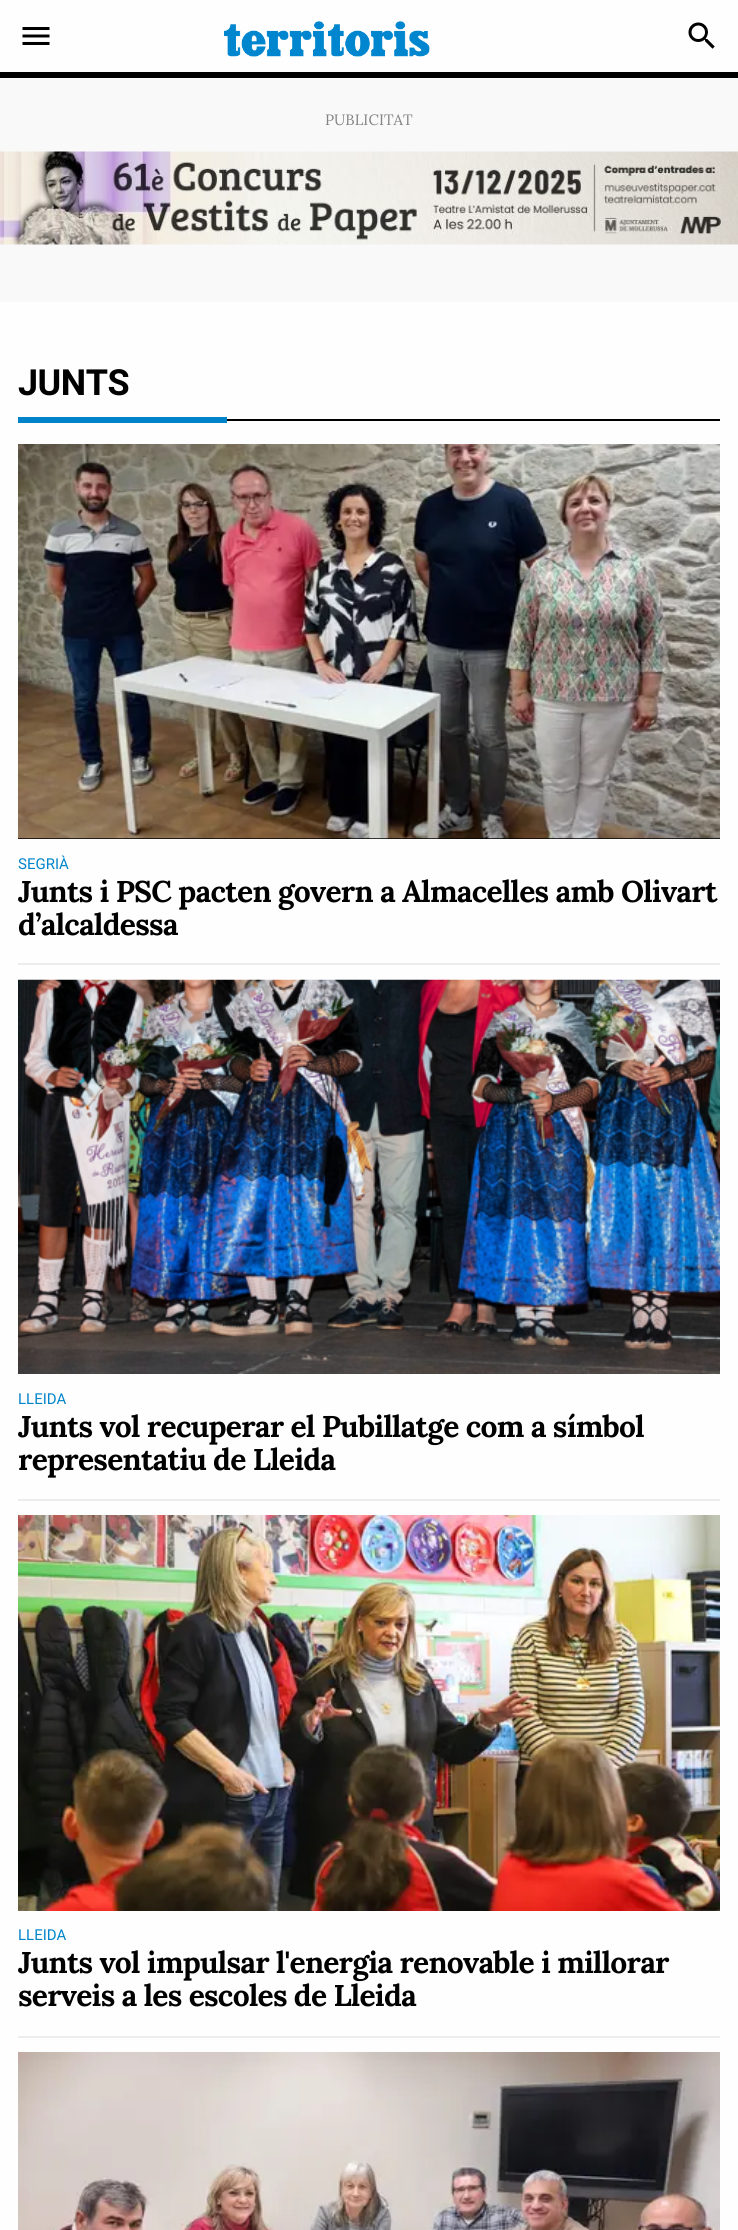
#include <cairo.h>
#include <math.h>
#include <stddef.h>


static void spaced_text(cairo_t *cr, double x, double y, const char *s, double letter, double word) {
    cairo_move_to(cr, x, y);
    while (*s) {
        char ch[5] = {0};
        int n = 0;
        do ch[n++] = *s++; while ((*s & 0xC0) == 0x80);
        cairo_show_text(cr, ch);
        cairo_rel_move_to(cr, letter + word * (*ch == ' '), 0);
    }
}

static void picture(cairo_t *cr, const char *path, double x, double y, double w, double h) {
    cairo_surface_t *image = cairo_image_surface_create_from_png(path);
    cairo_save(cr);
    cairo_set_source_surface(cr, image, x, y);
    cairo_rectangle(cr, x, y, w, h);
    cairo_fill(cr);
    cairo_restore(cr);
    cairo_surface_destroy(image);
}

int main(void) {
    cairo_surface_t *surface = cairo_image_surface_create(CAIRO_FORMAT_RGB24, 738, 2230);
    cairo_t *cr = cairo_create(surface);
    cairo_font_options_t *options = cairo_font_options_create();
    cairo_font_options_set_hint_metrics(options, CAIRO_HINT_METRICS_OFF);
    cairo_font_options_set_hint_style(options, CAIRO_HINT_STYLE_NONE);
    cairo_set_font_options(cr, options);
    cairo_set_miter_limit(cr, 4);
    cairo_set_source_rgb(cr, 0.996, 0.996, 0.996);
    cairo_paint(cr);
    cairo_set_source_rgb(cr, 0, 0, 0);
    cairo_rectangle(cr, 0, 72, 738, 6);
    cairo_fill(cr);
    picture(cr, "img1.png", 22, 27, 28, 18);
    picture(cr, "img2.png", 224, 21, 206, 36);
    picture(cr, "img3.png", 688, 22, 27, 27);
    cairo_set_source_rgb(cr, 0.973, 0.976, 0.98);
    cairo_rectangle(cr, 0, 78, 738, 224);
    cairo_fill(cr);
    cairo_select_font_face(cr, "Lora", CAIRO_FONT_SLANT_NORMAL, CAIRO_FONT_WEIGHT_NORMAL);
    cairo_set_font_size(cr, 15);
    cairo_set_source_rgb(cr, 0.514, 0.514, 0.514);
    cairo_move_to(cr, 325, 125);
    cairo_show_text(cr, "PUBLICITAT");
    picture(cr, "img4.png", 0, 151, 738, 94);
    cairo_select_font_face(cr, "Roboto", CAIRO_FONT_SLANT_NORMAL, CAIRO_FONT_WEIGHT_BOLD);
    cairo_set_font_size(cr, 36);
    cairo_set_source_rgb(cr, 0, 0, 0);
    spaced_text(cr, 18, 395, "JUNTS", -0.5, 0);
    cairo_set_source_rgb(cr, 0, 0.514, 0.788);
    cairo_rectangle(cr, 18, 417, 209, 6);
    cairo_fill(cr);
    cairo_set_source_rgb(cr, 0, 0, 0);
    cairo_rectangle(cr, 227, 419, 493, 2);
    cairo_fill(cr);
    cairo_set_source_rgb(cr, 0.929, 0.929, 0.929);
    cairo_rectangle(cr, 18, 963, 702, 2);
    cairo_fill(cr);
    cairo_set_source_rgb(cr, 0, 0, 0);
    cairo_rectangle(cr, 18, 838, 702, 1);
    cairo_fill(cr);
    picture(cr, "img5.png", 18, 444, 702, 395);
    cairo_select_font_face(cr, "Roboto", CAIRO_FONT_SLANT_NORMAL, CAIRO_FONT_WEIGHT_NORMAL);
    cairo_set_font_size(cr, 15);
    cairo_set_source_rgb(cr, 0, 0.514, 0.788);
    cairo_move_to(cr, 18, 869);
    cairo_show_text(cr, "SEGRIÀ");
    cairo_select_font_face(cr, "Lora", CAIRO_FONT_SLANT_NORMAL, CAIRO_FONT_WEIGHT_BOLD);
    cairo_set_font_size(cr, 30);
    cairo_set_source_rgb(cr, 0, 0, 0);
    spaced_text(cr, 18, 902, "Junts i PSC pacten govern a Almacelles amb Olivart", -0.75, 0);
    spaced_text(cr, 18, 935, "d’alcaldessa", -0.75, 0);
    cairo_set_source_rgb(cr, 0.929, 0.929, 0.929);
    cairo_rectangle(cr, 18, 1499, 702, 2);
    cairo_fill(cr);
    picture(cr, "img6.png", 18, 979, 702, 395);
    cairo_select_font_face(cr, "Roboto", CAIRO_FONT_SLANT_NORMAL, CAIRO_FONT_WEIGHT_NORMAL);
    cairo_set_font_size(cr, 15);
    cairo_set_source_rgb(cr, 0, 0.514, 0.788);
    cairo_move_to(cr, 18, 1404);
    cairo_show_text(cr, "LLEIDA");
    cairo_select_font_face(cr, "Lora", CAIRO_FONT_SLANT_NORMAL, CAIRO_FONT_WEIGHT_BOLD);
    cairo_set_font_size(cr, 30);
    cairo_set_source_rgb(cr, 0, 0, 0);
    spaced_text(cr, 18, 1437, "Junts vol recuperar el Pubillatge com a símbol", -0.75, 0);
    spaced_text(cr, 18, 1470, "representatiu de Lleida", -0.75, 0);
    cairo_set_source_rgb(cr, 0.929, 0.929, 0.929);
    cairo_rectangle(cr, 18, 2036, 702, 2);
    cairo_fill(cr);
    picture(cr, "img7.png", 18, 1515, 702, 396);
    cairo_select_font_face(cr, "Roboto", CAIRO_FONT_SLANT_NORMAL, CAIRO_FONT_WEIGHT_NORMAL);
    cairo_set_font_size(cr, 15);
    cairo_set_source_rgb(cr, 0, 0.514, 0.788);
    cairo_move_to(cr, 18, 1940);
    cairo_show_text(cr, "LLEIDA");
    cairo_select_font_face(cr, "Lora", CAIRO_FONT_SLANT_NORMAL, CAIRO_FONT_WEIGHT_BOLD);
    cairo_set_font_size(cr, 30);
    cairo_set_source_rgb(cr, 0, 0, 0);
    spaced_text(cr, 18, 1973, "Junts vol impulsar l'energia renovable i millorar", -0.75, 0);
    spaced_text(cr, 18, 2006, "serveis a les escoles de Lleida", -0.75, 0);
    picture(cr, "img8.png", 18, 2052, 702, 178);
    cairo_surface_write_to_png(surface, "page.png");
    cairo_font_options_destroy(options);
    cairo_destroy(cr);
    cairo_surface_destroy(surface);
    return 0;
}
